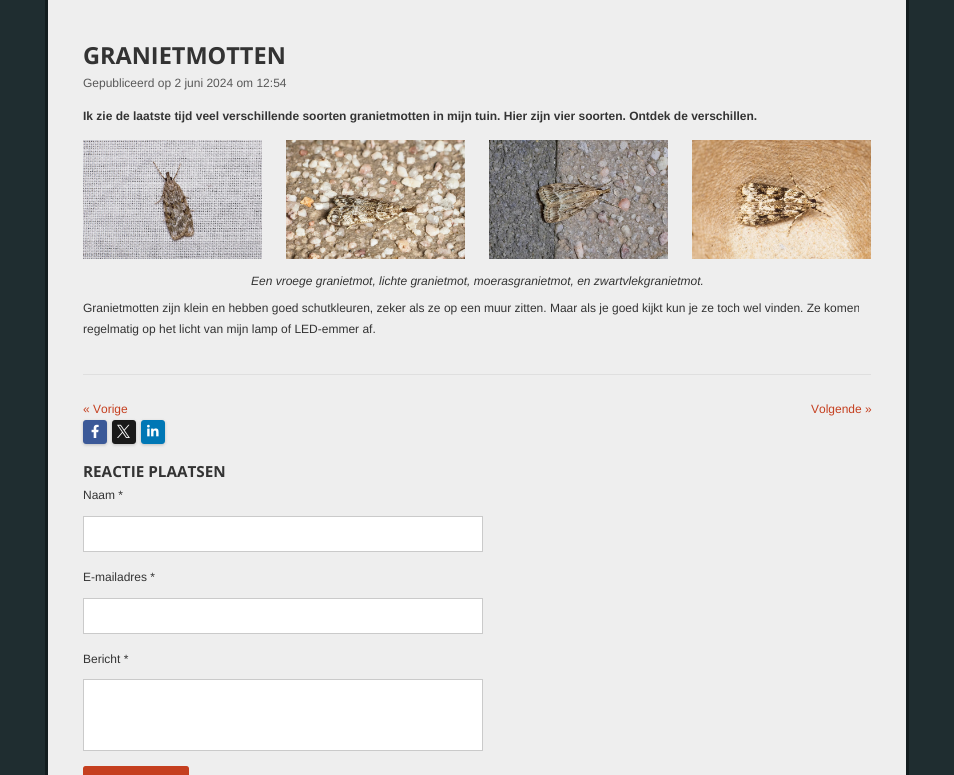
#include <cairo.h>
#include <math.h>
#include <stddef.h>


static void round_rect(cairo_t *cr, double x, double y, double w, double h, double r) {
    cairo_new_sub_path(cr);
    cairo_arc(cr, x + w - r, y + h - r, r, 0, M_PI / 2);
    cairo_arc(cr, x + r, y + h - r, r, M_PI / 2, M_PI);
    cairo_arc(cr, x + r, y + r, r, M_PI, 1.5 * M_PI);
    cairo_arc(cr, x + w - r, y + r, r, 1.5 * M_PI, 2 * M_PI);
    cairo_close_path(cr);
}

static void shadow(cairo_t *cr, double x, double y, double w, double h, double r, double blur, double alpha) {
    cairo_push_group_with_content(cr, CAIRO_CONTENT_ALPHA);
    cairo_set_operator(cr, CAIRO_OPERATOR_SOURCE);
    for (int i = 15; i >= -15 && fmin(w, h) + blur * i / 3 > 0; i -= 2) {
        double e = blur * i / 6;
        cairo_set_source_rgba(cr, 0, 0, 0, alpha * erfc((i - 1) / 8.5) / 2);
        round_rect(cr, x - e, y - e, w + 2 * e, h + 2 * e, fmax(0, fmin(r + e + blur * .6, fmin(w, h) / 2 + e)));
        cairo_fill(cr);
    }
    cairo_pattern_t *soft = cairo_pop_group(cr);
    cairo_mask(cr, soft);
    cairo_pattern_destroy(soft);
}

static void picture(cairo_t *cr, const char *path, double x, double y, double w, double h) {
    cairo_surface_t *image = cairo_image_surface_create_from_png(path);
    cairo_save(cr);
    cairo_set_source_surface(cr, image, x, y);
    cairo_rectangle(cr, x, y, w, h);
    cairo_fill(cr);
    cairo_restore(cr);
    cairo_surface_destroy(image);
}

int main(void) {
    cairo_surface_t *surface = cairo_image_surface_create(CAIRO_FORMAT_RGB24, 954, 775);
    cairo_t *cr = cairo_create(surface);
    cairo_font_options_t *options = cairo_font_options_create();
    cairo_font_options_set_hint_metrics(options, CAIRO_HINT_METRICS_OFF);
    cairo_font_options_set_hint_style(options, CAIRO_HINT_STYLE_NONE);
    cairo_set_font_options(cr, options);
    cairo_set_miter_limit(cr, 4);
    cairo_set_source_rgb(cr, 0.122, 0.176, 0.188);
    cairo_paint(cr);
    cairo_set_source_rgb(cr, 0.933, 0.933, 0.933);
    cairo_rectangle(cr, 46.5, -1.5, 861, 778);
    cairo_fill_preserve(cr);
    cairo_set_source_rgb(cr, 0.078, 0.114, 0.122);
    cairo_set_line_width(cr, 3);
    cairo_stroke(cr);
    cairo_select_font_face(cr, "Open Sans", CAIRO_FONT_SLANT_NORMAL, CAIRO_FONT_WEIGHT_BOLD);
    cairo_set_font_size(cr, 23.5);
    cairo_set_source_rgb(cr, 0.2, 0.2, 0.2);
    cairo_move_to(cr, 83, 64);
    cairo_show_text(cr, "GRANIETMOTTEN");
    cairo_select_font_face(cr, "Liberation Sans", CAIRO_FONT_SLANT_NORMAL, CAIRO_FONT_WEIGHT_NORMAL);
    cairo_set_font_size(cr, 12);
    cairo_set_source_rgb(cr, 0.345, 0.345, 0.345);
    cairo_move_to(cr, 83, 87);
    cairo_show_text(cr, "Gepubliceerd op 2 juni 2024 om 12:54");
    cairo_select_font_face(cr, "Liberation Sans", CAIRO_FONT_SLANT_NORMAL, CAIRO_FONT_WEIGHT_BOLD);
    cairo_set_source_rgb(cr, 0.2, 0.2, 0.2);
    cairo_move_to(cr, 83, 120);
    cairo_show_text(cr, "Ik zie de laatste tijd veel verschillende soorten granietmotten in mijn tuin. Hier zijn vier soorten. Ontdek de verschillen.");
    picture(cr, "img1.png", 83, 140, 179, 119);
    picture(cr, "img2.png", 286, 140, 179, 119);
    picture(cr, "img3.png", 489, 140, 179, 119);
    picture(cr, "img4.png", 692, 140, 179, 119);
    cairo_select_font_face(cr, "Liberation Sans", CAIRO_FONT_SLANT_ITALIC, CAIRO_FONT_WEIGHT_NORMAL);
    cairo_move_to(cr, 251, 285);
    cairo_show_text(cr, "Een vroege granietmot, lichte granietmot, moerasgranietmot, en zwartvlekgranietmot.");
    cairo_select_font_face(cr, "Liberation Sans", CAIRO_FONT_SLANT_NORMAL, CAIRO_FONT_WEIGHT_NORMAL);
    cairo_move_to(cr, 83, 312);
    cairo_show_text(cr, "Granietmotten zijn klein en hebben goed schutkleuren, zeker als ze op een muur zitten. Maar als je goed kijkt kun je ze toch wel vinden. Ze komen");
    cairo_move_to(cr, 83, 333);
    cairo_show_text(cr, "regelmatig op het licht van mijn lamp of LED-emmer af.");
    cairo_set_source_rgb(cr, 0.875, 0.875, 0.875);
    cairo_rectangle(cr, 83, 374, 788, 1);
    cairo_fill(cr);
    cairo_set_source_rgb(cr, 0.773, 0.247, 0.122);
    cairo_move_to(cr, 83, 413);
    cairo_show_text(cr, "« Vorige");
    cairo_move_to(cr, 811, 413);
    cairo_show_text(cr, "Volgende »");
    cairo_set_source_rgb(cr, 0, 0, 0);
    shadow(cr, 83, 421, 24, 24, 3, 1.5, 0.2);
    cairo_set_source_rgb(cr, 0.231, 0.349, 0.596);
    round_rect(cr, 83, 420, 24, 24, 3);
    cairo_fill(cr);
    picture(cr, "img5.png", 91, 424, 8, 14);
    cairo_set_source_rgb(cr, 0, 0, 0);
    shadow(cr, 112, 421, 24, 24, 3, 1.5, 0.2);
    cairo_set_source_rgb(cr, 0.102, 0.102, 0.102);
    round_rect(cr, 112, 420, 24, 24, 3);
    cairo_fill(cr);
    picture(cr, "img6.png", 117, 424, 13, 14);
    cairo_set_source_rgb(cr, 0, 0, 0);
    shadow(cr, 141, 421, 24, 24, 3, 1.5, 0.2);
    cairo_set_source_rgb(cr, 0, 0.467, 0.71);
    round_rect(cr, 141, 420, 24, 24, 3);
    cairo_fill(cr);
    picture(cr, "img7.png", 147, 424, 12, 13);
    cairo_select_font_face(cr, "Open Sans", CAIRO_FONT_SLANT_NORMAL, CAIRO_FONT_WEIGHT_BOLD);
    cairo_set_font_size(cr, 15.25);
    cairo_set_source_rgb(cr, 0.2, 0.2, 0.2);
    cairo_move_to(cr, 83, 477);
    cairo_show_text(cr, "REACTIE PLAATSEN");
    cairo_select_font_face(cr, "Liberation Sans", CAIRO_FONT_SLANT_NORMAL, CAIRO_FONT_WEIGHT_NORMAL);
    cairo_set_font_size(cr, 12);
    cairo_move_to(cr, 83, 499);
    cairo_show_text(cr, "Naam *");
    cairo_set_source_rgb(cr, 1, 1, 1);
    cairo_rectangle(cr, 83.5, 516.5, 399, 35);
    cairo_fill_preserve(cr);
    cairo_set_source_rgb(cr, 0.792, 0.792, 0.792);
    cairo_set_line_width(cr, 1);
    cairo_stroke(cr);
    cairo_set_source_rgb(cr, 0.2, 0.2, 0.2);
    cairo_move_to(cr, 83, 581);
    cairo_show_text(cr, "E-mailadres *");
    cairo_set_source_rgb(cr, 1, 1, 1);
    cairo_rectangle(cr, 83.5, 598.5, 399, 35);
    cairo_fill_preserve(cr);
    cairo_set_source_rgb(cr, 0.792, 0.792, 0.792);
    cairo_stroke(cr);
    cairo_set_source_rgb(cr, 0.2, 0.2, 0.2);
    cairo_move_to(cr, 83, 663);
    cairo_show_text(cr, "Bericht *");
    cairo_set_source_rgb(cr, 1, 1, 1);
    cairo_rectangle(cr, 83.5, 679.5, 399, 71);
    cairo_fill_preserve(cr);
    cairo_set_source_rgb(cr, 0.792, 0.792, 0.792);
    cairo_stroke(cr);
    cairo_set_source_rgb(cr, 0.773, 0.247, 0.122);
    round_rect(cr, 83, 766, 106, 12, 2.5);
    cairo_fill(cr);
    cairo_surface_write_to_png(surface, "page.png");
    cairo_font_options_destroy(options);
    cairo_destroy(cr);
    cairo_surface_destroy(surface);
    return 0;
}
